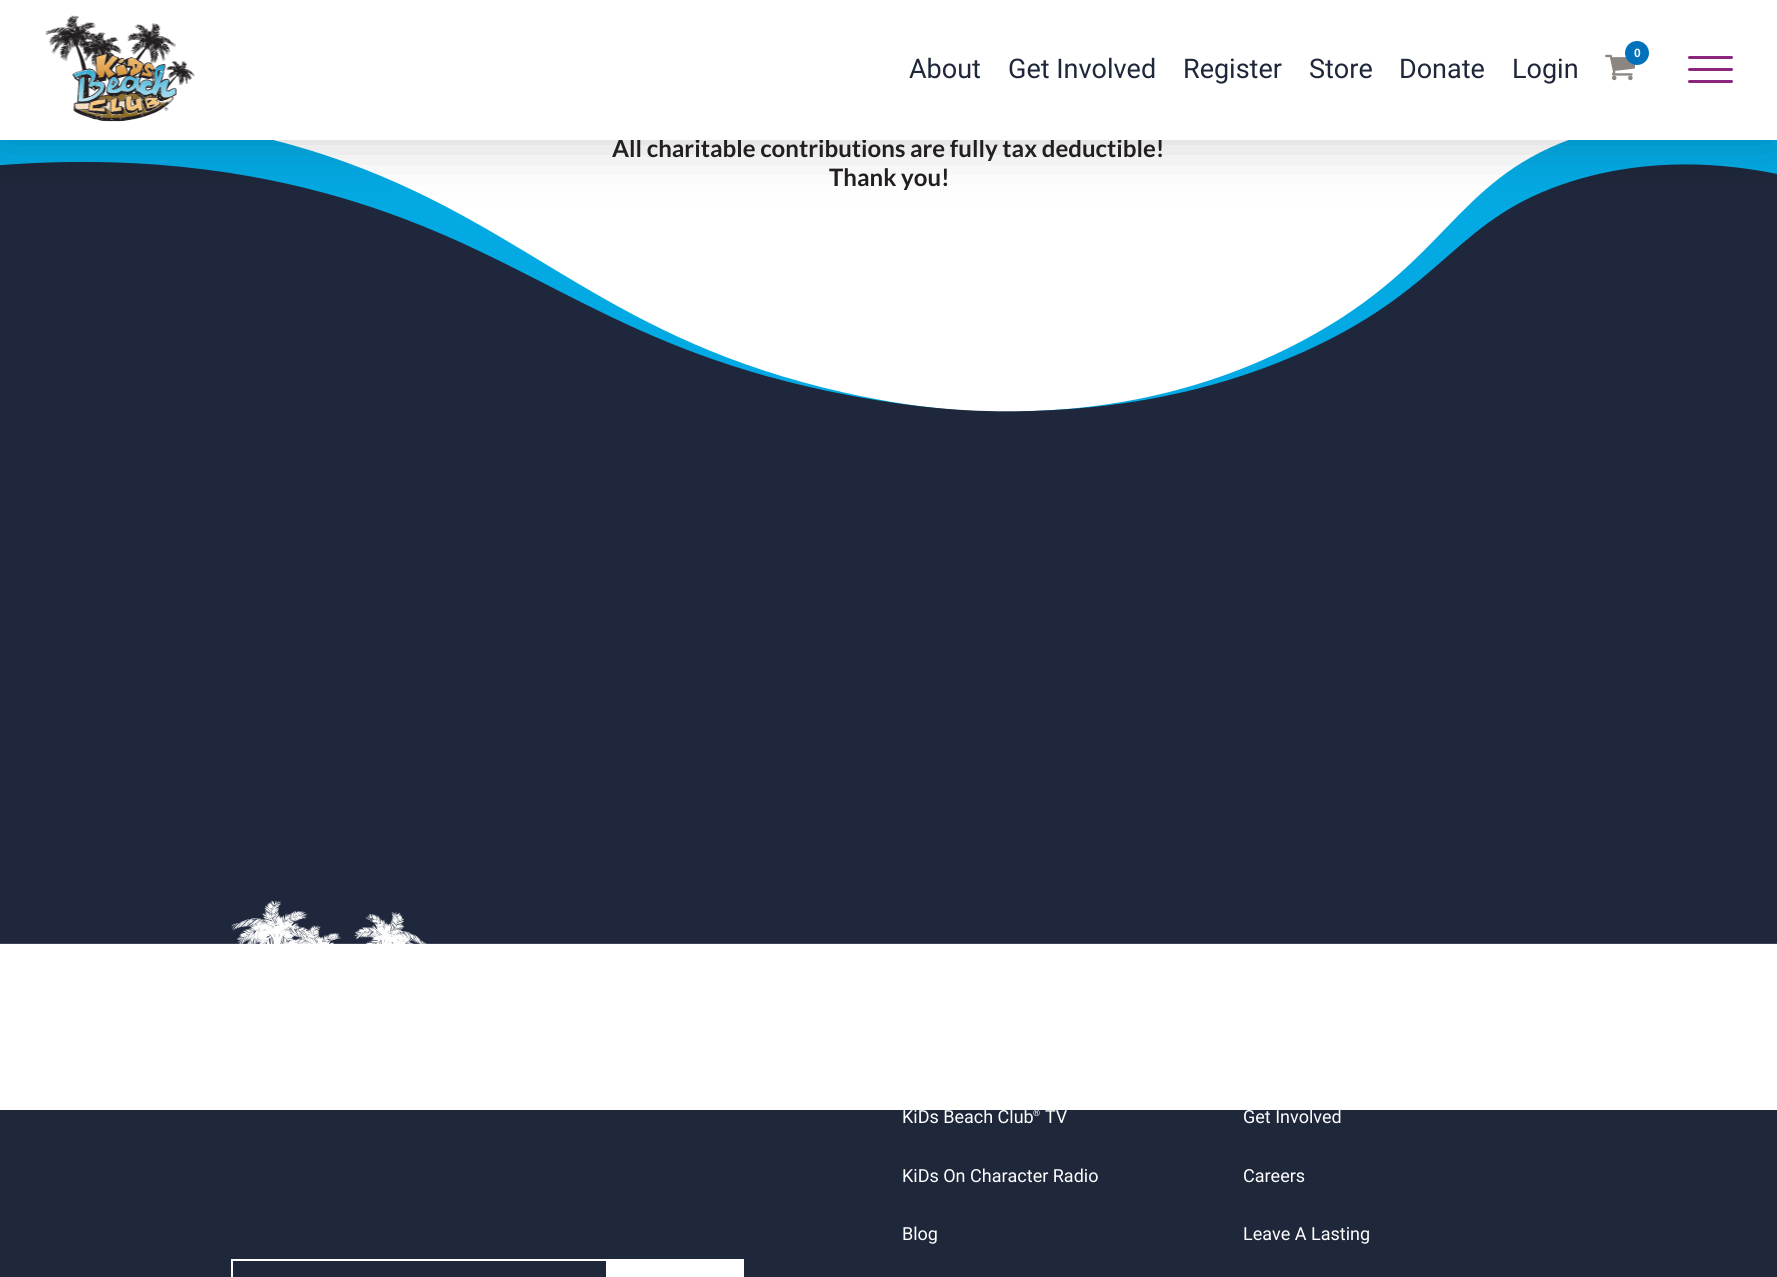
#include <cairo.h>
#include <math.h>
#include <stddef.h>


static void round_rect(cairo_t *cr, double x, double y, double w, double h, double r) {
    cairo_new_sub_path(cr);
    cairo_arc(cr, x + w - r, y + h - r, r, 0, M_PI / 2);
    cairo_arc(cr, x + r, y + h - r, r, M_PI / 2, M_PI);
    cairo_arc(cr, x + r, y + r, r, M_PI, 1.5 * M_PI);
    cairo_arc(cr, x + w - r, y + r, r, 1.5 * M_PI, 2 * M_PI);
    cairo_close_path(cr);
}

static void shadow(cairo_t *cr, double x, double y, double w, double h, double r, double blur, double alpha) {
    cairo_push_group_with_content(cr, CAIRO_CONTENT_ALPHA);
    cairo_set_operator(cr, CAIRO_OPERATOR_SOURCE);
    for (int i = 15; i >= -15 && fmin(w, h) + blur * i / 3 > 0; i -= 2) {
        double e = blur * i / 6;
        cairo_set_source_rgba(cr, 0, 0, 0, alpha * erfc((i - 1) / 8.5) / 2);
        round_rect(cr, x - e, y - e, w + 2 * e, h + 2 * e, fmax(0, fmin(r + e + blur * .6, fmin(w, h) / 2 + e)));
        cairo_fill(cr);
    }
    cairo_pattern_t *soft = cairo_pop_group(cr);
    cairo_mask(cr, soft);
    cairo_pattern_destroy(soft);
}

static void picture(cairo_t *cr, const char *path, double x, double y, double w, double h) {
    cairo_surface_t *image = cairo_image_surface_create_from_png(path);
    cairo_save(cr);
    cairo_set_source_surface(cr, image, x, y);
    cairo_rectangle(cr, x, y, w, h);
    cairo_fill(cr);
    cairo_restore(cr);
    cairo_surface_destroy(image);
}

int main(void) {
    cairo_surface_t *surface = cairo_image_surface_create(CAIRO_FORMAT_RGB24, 1777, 1277);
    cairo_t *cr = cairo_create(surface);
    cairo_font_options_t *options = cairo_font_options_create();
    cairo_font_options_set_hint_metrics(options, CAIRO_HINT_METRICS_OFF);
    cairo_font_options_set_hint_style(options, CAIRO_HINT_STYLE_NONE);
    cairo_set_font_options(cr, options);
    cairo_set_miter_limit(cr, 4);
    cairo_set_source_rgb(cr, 1, 1, 1);
    cairo_paint(cr);
    picture(cr, "img3.png", 0, 140, 1777, 804);
    cairo_set_source_rgb(cr, 0, 0, 0);
    shadow(cr, 0, 0, 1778, 140, 0, 30, 0.2);
    cairo_select_font_face(cr, "Lato", CAIRO_FONT_SLANT_NORMAL, CAIRO_FONT_WEIGHT_BOLD);
    cairo_set_font_size(cr, 24);
    cairo_set_source_rgb(cr, 0.137, 0.122, 0.125);
    cairo_move_to(cr, 612, 157);
    cairo_show_text(cr, "All charitable contributions are fully tax deductible!");
    cairo_set_source_rgb(cr, 1, 1, 1);
    cairo_rectangle(cr, 0, 0, 1777, 140);
    cairo_fill(cr);
    picture(cr, "img1.png", 45, 15, 150, 107);
    picture(cr, "img2.png", 1605, 54, 30, 27);
    cairo_set_source_rgb(cr, 0, 0.447, 0.737);
    cairo_arc(cr, 1637, 53, 12, 0, 2 * M_PI);
    cairo_fill(cr);
    cairo_select_font_face(cr, "Liberation Sans", CAIRO_FONT_SLANT_NORMAL, CAIRO_FONT_WEIGHT_BOLD);
    cairo_set_font_size(cr, 12);
    cairo_set_source_rgb(cr, 1, 1, 1);
    cairo_move_to(cr, 1634, 57);
    cairo_show_text(cr, "0");
    cairo_select_font_face(cr, "Roboto", CAIRO_FONT_SLANT_NORMAL, CAIRO_FONT_WEIGHT_NORMAL);
    cairo_set_font_size(cr, 27);
    cairo_set_source_rgb(cr, 0.122, 0.153, 0.231);
    cairo_move_to(cr, 909, 78);
    cairo_show_text(cr, "About");
    cairo_move_to(cr, 1008, 78);
    cairo_show_text(cr, "Get Involved");
    cairo_move_to(cr, 1183, 78);
    cairo_show_text(cr, "Register");
    cairo_move_to(cr, 1309, 78);
    cairo_show_text(cr, "Store");
    cairo_move_to(cr, 1399, 78);
    cairo_show_text(cr, "Donate");
    cairo_move_to(cr, 1512, 78);
    cairo_show_text(cr, "Login");
    cairo_set_source_rgb(cr, 0.541, 0.149, 0.49);
    round_rect(cr, 1688, 68, 45, 3, 1.5);
    cairo_fill(cr);
    round_rect(cr, 1688, 56, 45, 3, 1.5);
    cairo_fill(cr);
    round_rect(cr, 1688, 80, 45, 3, 1.5);
    cairo_fill(cr);
    cairo_select_font_face(cr, "Lato", CAIRO_FONT_SLANT_NORMAL, CAIRO_FONT_WEIGHT_BOLD);
    cairo_set_font_size(cr, 24);
    cairo_set_source_rgb(cr, 0.137, 0.122, 0.125);
    cairo_move_to(cr, 829, 186);
    cairo_show_text(cr, "Thank you!");
    cairo_set_source_rgb(cr, 0.122, 0.153, 0.231);
    cairo_rectangle(cr, 0, 1110, 1777, 167);
    cairo_fill(cr);
    picture(cr, "img4.png", 231, 900, 196, 44);
    cairo_select_font_face(cr, "Roboto", CAIRO_FONT_SLANT_NORMAL, CAIRO_FONT_WEIGHT_NORMAL);
    cairo_set_font_size(cr, 18);
    cairo_set_source_rgb(cr, 1, 1, 1);
    cairo_move_to(cr, 902, 1123);
    cairo_show_text(cr, "KiDs Beach Club");
    cairo_set_font_size(cr, 9);
    cairo_move_to(cr, 1033, 1116);
    cairo_show_text(cr, "®");
    cairo_set_font_size(cr, 18);
    cairo_move_to(cr, 1045, 1123);
    cairo_show_text(cr, "TV");
    cairo_move_to(cr, 902, 1182);
    cairo_show_text(cr, "KiDs On Character Radio");
    cairo_move_to(cr, 902, 1240);
    cairo_show_text(cr, "Blog");
    cairo_move_to(cr, 1243, 1123);
    cairo_show_text(cr, "Get Involved");
    cairo_move_to(cr, 1243, 1182);
    cairo_show_text(cr, "Careers");
    cairo_move_to(cr, 1243, 1240);
    cairo_show_text(cr, "Leave A Lasting");
    cairo_rectangle(cr, 232, 1260, 511, 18);
    cairo_stroke(cr);
    cairo_rectangle(cr, 606, 1261, 136, 16);
    cairo_fill(cr);
    cairo_surface_write_to_png(surface, "page.png");
    cairo_font_options_destroy(options);
    cairo_destroy(cr);
    cairo_surface_destroy(surface);
    return 0;
}
